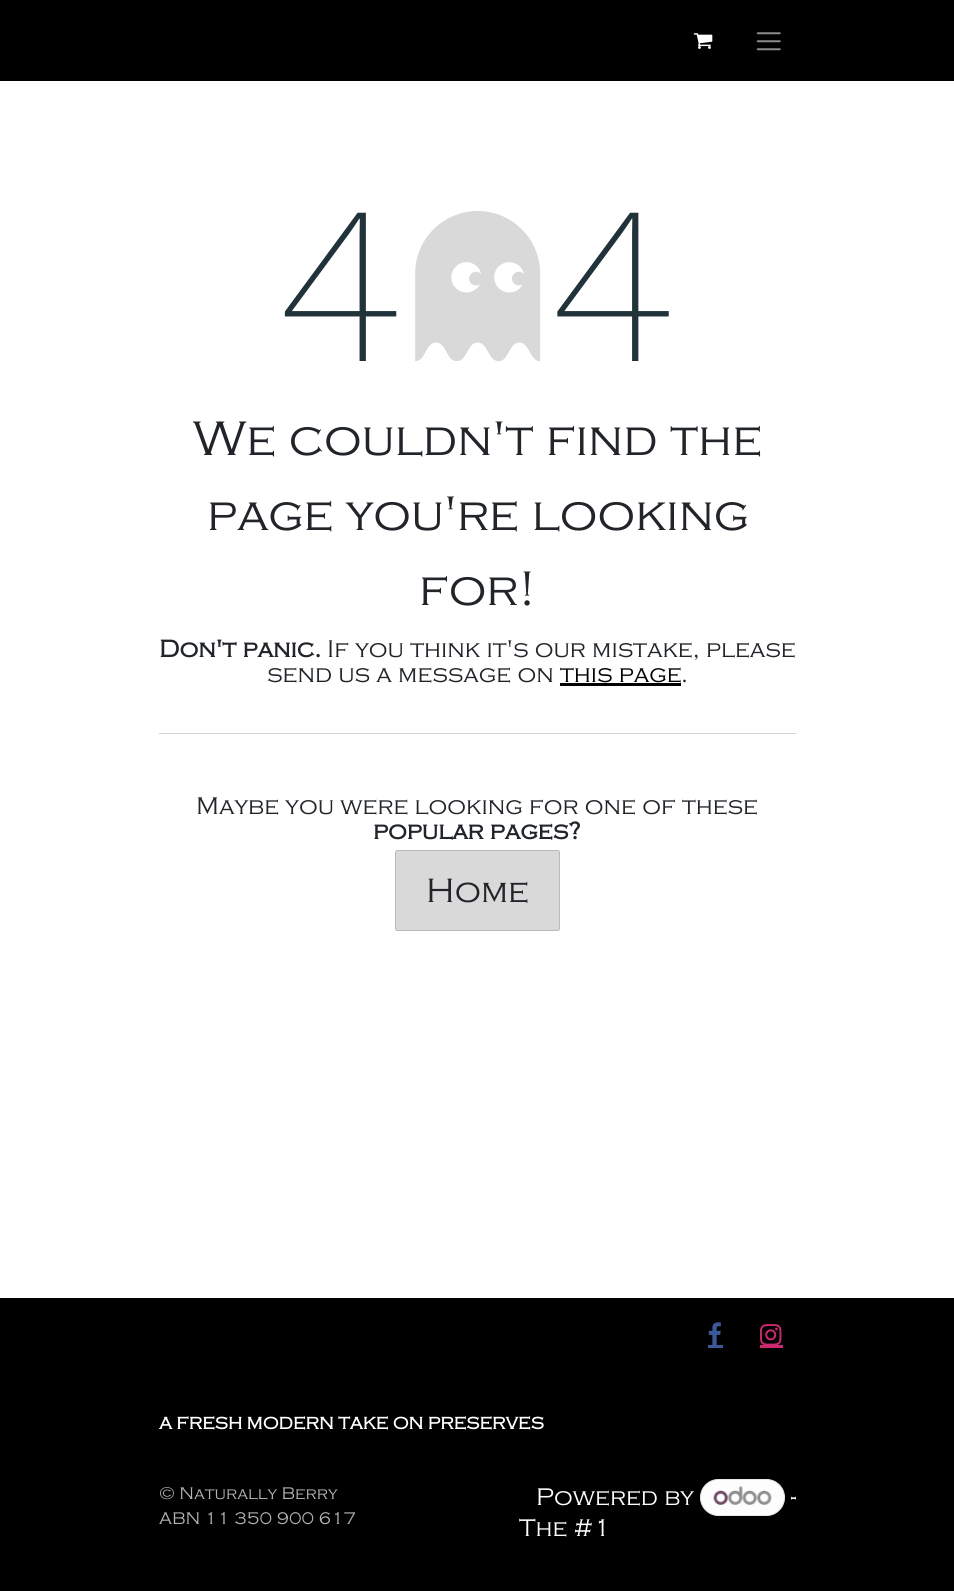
#include <cairo.h>
#include <math.h>
#include <stddef.h>


static void round_rect(cairo_t *cr, double x, double y, double w, double h, double r) {
    cairo_new_sub_path(cr);
    cairo_arc(cr, x + w - r, y + h - r, r, 0, M_PI / 2);
    cairo_arc(cr, x + r, y + h - r, r, M_PI / 2, M_PI);
    cairo_arc(cr, x + r, y + r, r, M_PI, 1.5 * M_PI);
    cairo_arc(cr, x + w - r, y + r, r, 1.5 * M_PI, 2 * M_PI);
    cairo_close_path(cr);
}

static void picture(cairo_t *cr, const char *path, double x, double y, double w, double h) {
    cairo_surface_t *image = cairo_image_surface_create_from_png(path);
    cairo_save(cr);
    cairo_set_source_surface(cr, image, x, y);
    cairo_rectangle(cr, x, y, w, h);
    cairo_fill(cr);
    cairo_restore(cr);
    cairo_surface_destroy(image);
}

int main(void) {
    cairo_surface_t *surface = cairo_image_surface_create(CAIRO_FORMAT_RGB24, 954, 1591);
    cairo_t *cr = cairo_create(surface);
    cairo_font_options_t *options = cairo_font_options_create();
    cairo_font_options_set_hint_metrics(options, CAIRO_HINT_METRICS_OFF);
    cairo_font_options_set_hint_style(options, CAIRO_HINT_STYLE_NONE);
    cairo_set_font_options(cr, options);
    cairo_set_miter_limit(cr, 4);
    cairo_set_source_rgb(cr, 1, 1, 1);
    cairo_paint(cr);
    cairo_set_source_rgb(cr, 0, 0, 0);
    cairo_rectangle(cr, 0, 0, 954, 81);
    cairo_fill(cr);
    picture(cr, "img1.png", 693, 33, 20, 16);
    picture(cr, "img2.png", 756, 32, 25, 19);
    picture(cr, "img3.png", 284, 211, 385, 150);
    cairo_select_font_face(cr, "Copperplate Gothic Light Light", CAIRO_FONT_SLANT_NORMAL, CAIRO_FONT_WEIGHT_NORMAL);
    cairo_set_font_size(cr, 50.25);
    cairo_set_source_rgb(cr, 0.129, 0.145, 0.161);
    cairo_move_to(cr, 193, 455);
    cairo_show_text(cr, "We couldn't find the");
    cairo_move_to(cr, 207, 530);
    cairo_show_text(cr, "page you're looking");
    cairo_move_to(cr, 419, 605);
    cairo_show_text(cr, "for!");
    cairo_select_font_face(cr, "Copperplate Gothic Light", CAIRO_FONT_SLANT_NORMAL, CAIRO_FONT_WEIGHT_BOLD);
    cairo_set_font_size(cr, 25);
    cairo_move_to(cr, 159, 657);
    cairo_show_text(cr, "Don't panic.");
    cairo_select_font_face(cr, "Copperplate Gothic Light Light", CAIRO_FONT_SLANT_NORMAL, CAIRO_FONT_WEIGHT_NORMAL);
    cairo_move_to(cr, 327, 657);
    cairo_show_text(cr, "If you think it's our mistake, please");
    cairo_move_to(cr, 267, 682);
    cairo_show_text(cr, "send us a message on");
    cairo_set_source_rgb(cr, 0, 0, 0);
    cairo_move_to(cr, 560, 682);
    cairo_show_text(cr, "this page");
    cairo_rectangle(cr, 560, 683, 121, 3);
    cairo_fill(cr);
    cairo_set_source_rgb(cr, 0.129, 0.145, 0.161);
    cairo_move_to(cr, 681, 682);
    cairo_show_text(cr, ".");
    cairo_set_source_rgb(cr, 0.808, 0.831, 0.855);
    cairo_rectangle(cr, 159, 733, 637, 1);
    cairo_fill(cr);
    cairo_set_source_rgb(cr, 0.129, 0.145, 0.161);
    cairo_move_to(cr, 196, 814);
    cairo_show_text(cr, "Maybe you were looking for one of these");
    cairo_select_font_face(cr, "Copperplate Gothic Light", CAIRO_FONT_SLANT_NORMAL, CAIRO_FONT_WEIGHT_BOLD);
    cairo_move_to(cr, 373, 839);
    cairo_show_text(cr, "popular pages?");
    cairo_set_source_rgb(cr, 0.851, 0.851, 0.851);
    round_rect(cr, 395, 850, 165, 81, 2.5);
    cairo_fill(cr);
    round_rect(cr, 395.5, 850.5, 164, 80, 2);
    cairo_set_source_rgba(cr, 0, 0, 0, 0.15);
    cairo_set_line_width(cr, 1);
    cairo_stroke(cr);
    cairo_select_font_face(cr, "Copperplate Gothic Light Light", CAIRO_FONT_SLANT_NORMAL, CAIRO_FONT_WEIGHT_NORMAL);
    cairo_set_font_size(cr, 35);
    cairo_set_source_rgb(cr, 0.129, 0.145, 0.161);
    cairo_move_to(cr, 426, 902);
    cairo_show_text(cr, "Home");
    cairo_set_source_rgb(cr, 0, 0, 0);
    cairo_rectangle(cr, 0, 1298, 954, 293);
    cairo_fill(cr);
    cairo_set_source_rgb(cr, 0.231, 0.349, 0.6);
    cairo_rectangle(cr, 708, 1345, 15, 3);
    cairo_fill(cr);
    picture(cr, "img4.png", 708, 1322, 13, 23);
    cairo_set_source_rgb(cr, 0.812, 0.157, 0.447);
    cairo_rectangle(cr, 760, 1345, 23, 3);
    cairo_fill(cr);
    picture(cr, "img5.png", 760, 1324, 22, 21);
    cairo_select_font_face(cr, "Copperplate Gothic Light", CAIRO_FONT_SLANT_NORMAL, CAIRO_FONT_WEIGHT_BOLD);
    cairo_set_font_size(cr, 17.5);
    cairo_set_source_rgb(cr, 1, 1, 1);
    cairo_move_to(cr, 159, 1429);
    cairo_show_text(cr, "A FRESH MODERN TAKE ON PRESERVES");
    cairo_select_font_face(cr, "Copperplate Gothic Light Light", CAIRO_FONT_SLANT_NORMAL, CAIRO_FONT_WEIGHT_NORMAL);
    cairo_set_source_rgb(cr, 0.702, 0.702, 0.702);
    cairo_move_to(cr, 159, 1499);
    cairo_show_text(cr, "© Naturally Berry");
    cairo_move_to(cr, 159, 1524);
    cairo_show_text(cr, "ABN 11 350 900 617");
    cairo_set_font_size(cr, 25);
    cairo_set_source_rgb(cr, 1, 1, 1);
    cairo_move_to(cr, 536, 1505);
    cairo_show_text(cr, "Powered by");
    cairo_set_source_rgb(cr, 0.992, 0.992, 0.992);
    round_rect(cr, 700.5, 1479.5, 84, 36, 18);
    cairo_fill_preserve(cr);
    cairo_set_source_rgb(cr, 0.91, 0.91, 0.91);
    cairo_stroke(cr);
    picture(cr, "img6.png", 713, 1486, 59, 19);
    cairo_set_source_rgb(cr, 1, 1, 1);
    cairo_move_to(cr, 791, 1505);
    cairo_show_text(cr, "-");
    cairo_move_to(cr, 519, 1536);
    cairo_show_text(cr, "The #1");
    cairo_surface_write_to_png(surface, "page.png");
    cairo_font_options_destroy(options);
    cairo_destroy(cr);
    cairo_surface_destroy(surface);
    return 0;
}
